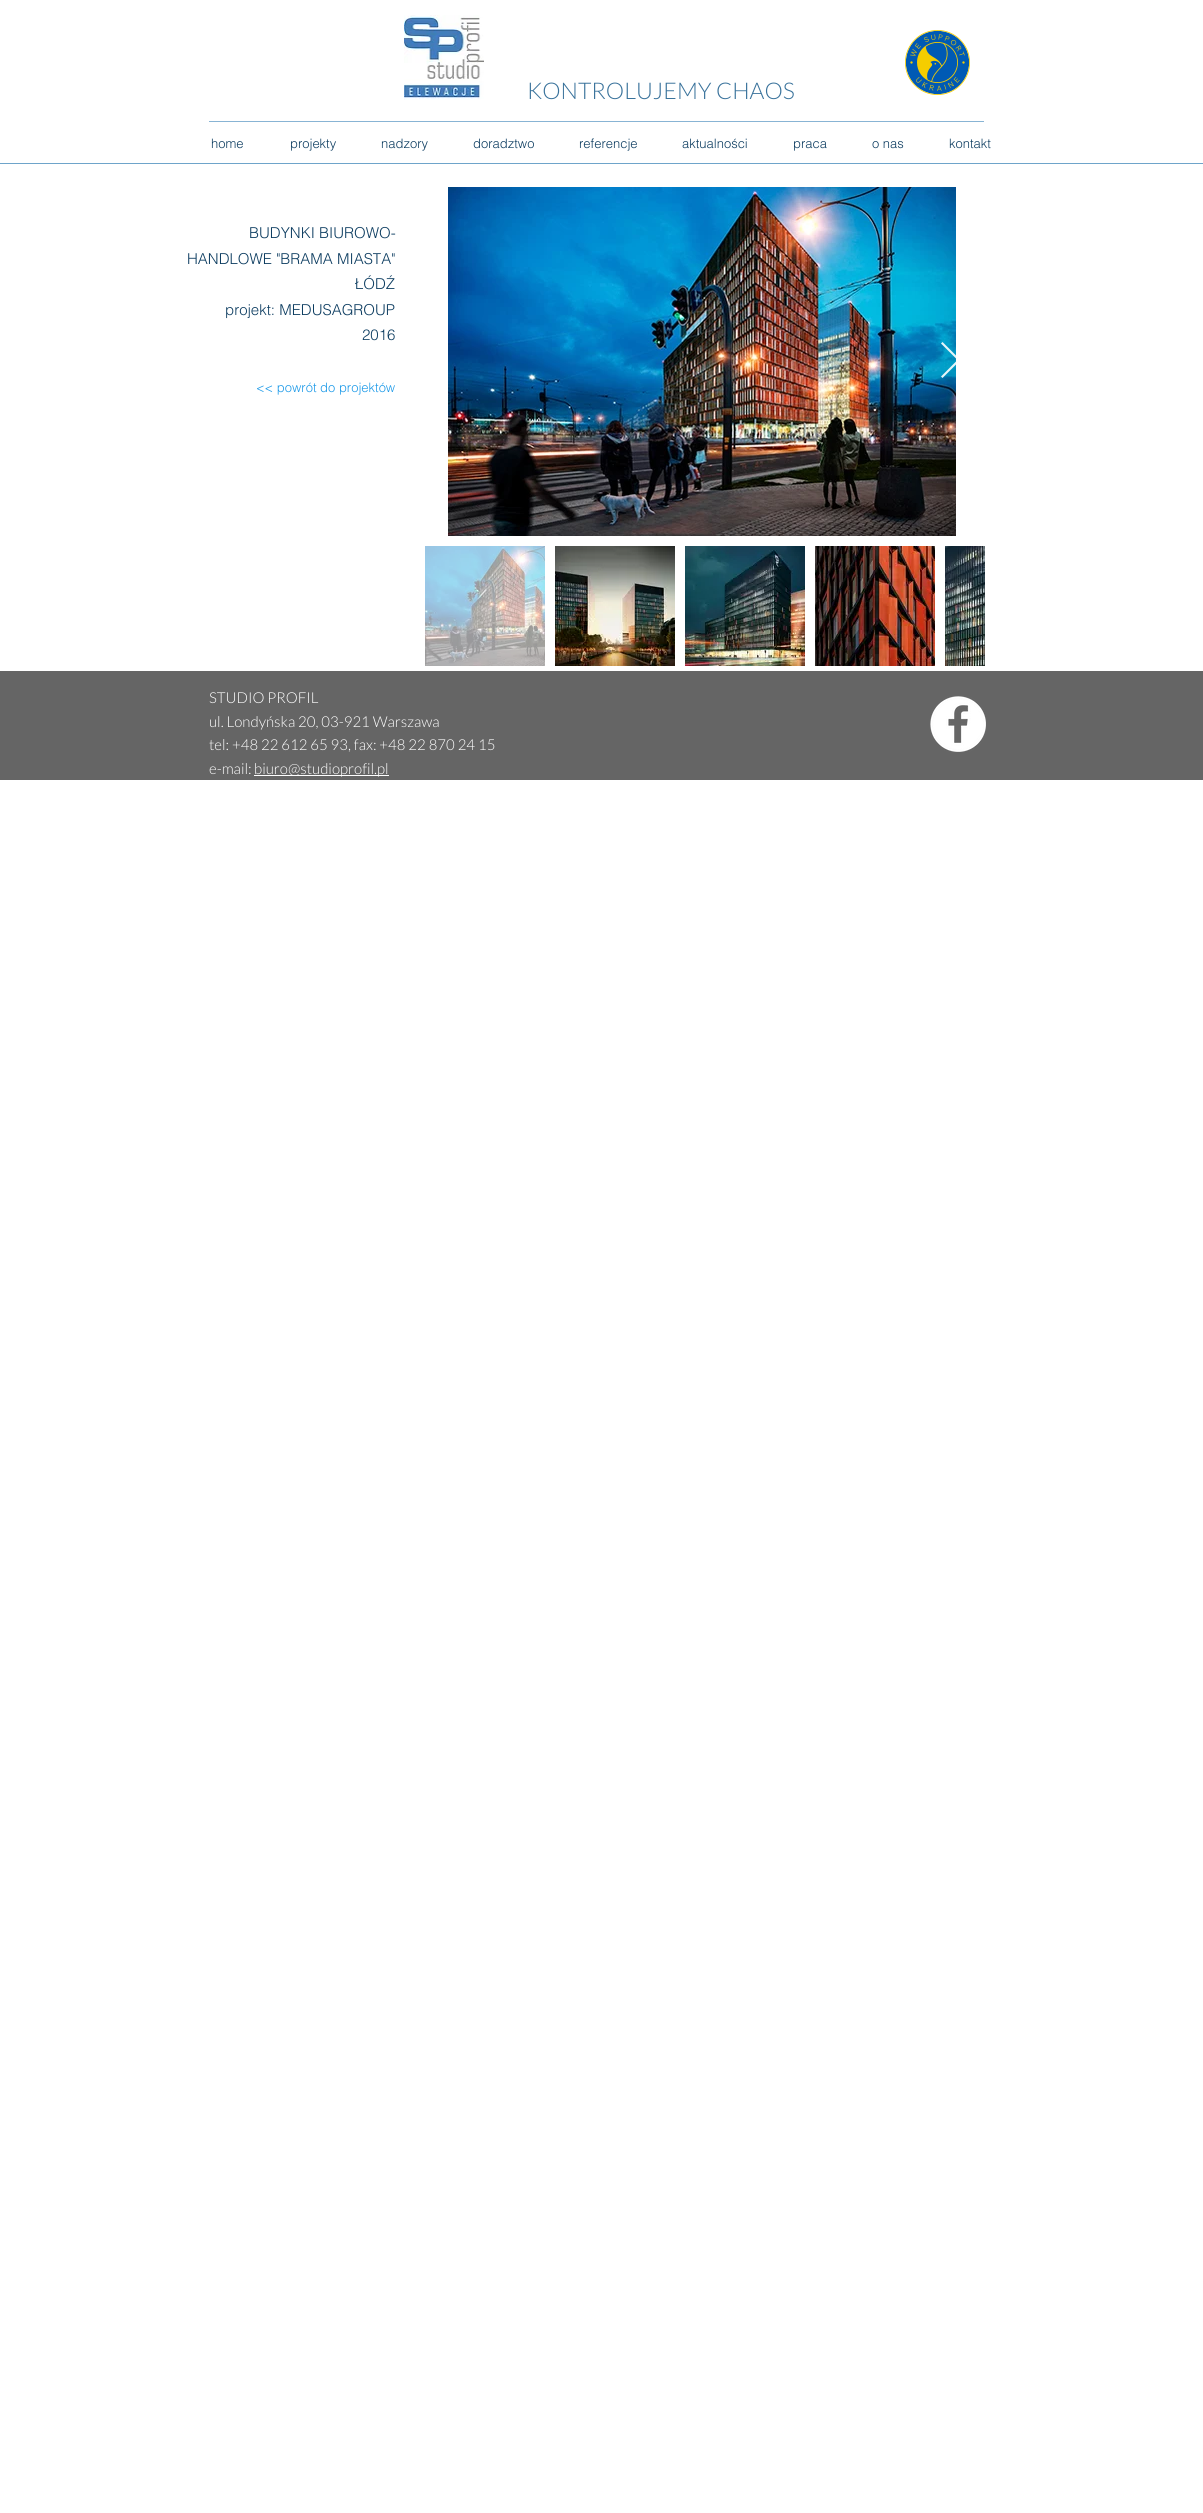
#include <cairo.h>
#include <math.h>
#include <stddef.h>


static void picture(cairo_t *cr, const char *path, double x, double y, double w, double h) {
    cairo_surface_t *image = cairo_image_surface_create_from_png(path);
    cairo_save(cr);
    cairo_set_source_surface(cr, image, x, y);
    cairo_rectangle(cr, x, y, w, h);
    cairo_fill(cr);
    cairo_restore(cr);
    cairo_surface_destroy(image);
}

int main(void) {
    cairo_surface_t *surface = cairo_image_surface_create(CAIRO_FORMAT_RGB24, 1203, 2513);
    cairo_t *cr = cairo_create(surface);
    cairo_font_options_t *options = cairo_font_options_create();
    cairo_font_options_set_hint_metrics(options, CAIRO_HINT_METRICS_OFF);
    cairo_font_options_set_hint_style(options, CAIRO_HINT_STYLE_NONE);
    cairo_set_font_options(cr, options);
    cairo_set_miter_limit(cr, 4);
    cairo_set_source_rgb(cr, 1, 1, 1);
    cairo_paint(cr);
    picture(cr, "img1.png", 404, 15, 80, 85);
    cairo_select_font_face(cr, "Lato Light", CAIRO_FONT_SLANT_NORMAL, CAIRO_FONT_WEIGHT_NORMAL);
    cairo_set_font_size(cr, 23);
    cairo_set_source_rgb(cr, 0.224, 0.447, 0.608);
    cairo_move_to(cr, 527, 99);
    cairo_show_text(cr, "KONTROLUJEMY CHAOS");
    picture(cr, "img2.png", 905, 30, 65, 65);
    cairo_set_source_rgb(cr, 0.533, 0.706, 0.831);
    cairo_rectangle(cr, 209, 121, 775, 1);
    cairo_fill(cr);
    cairo_select_font_face(cr, "helvetica Light", CAIRO_FONT_SLANT_NORMAL, CAIRO_FONT_WEIGHT_NORMAL);
    cairo_set_font_size(cr, 13);
    cairo_set_source_rgb(cr, 0.047, 0.235, 0.376);
    cairo_move_to(cr, 211, 148);
    cairo_show_text(cr, "home");
    cairo_move_to(cr, 290, 148);
    cairo_show_text(cr, "projekty");
    cairo_move_to(cr, 381, 148);
    cairo_show_text(cr, "nadzory");
    cairo_move_to(cr, 473, 148);
    cairo_show_text(cr, "doradztwo");
    cairo_move_to(cr, 579, 148);
    cairo_show_text(cr, "referencje");
    cairo_move_to(cr, 682, 148);
    cairo_show_text(cr, "aktualności");
    cairo_move_to(cr, 793, 148);
    cairo_show_text(cr, "praca");
    cairo_move_to(cr, 872, 148);
    cairo_show_text(cr, "o nas");
    cairo_move_to(cr, 949, 148);
    cairo_show_text(cr, "kontakt");
    cairo_set_source_rgb(cr, 0.431, 0.643, 0.792);
    cairo_rectangle(cr, 0, 163, 1203, 1);
    cairo_fill(cr);
    cairo_set_font_size(cr, 15);
    cairo_set_source_rgb(cr, 0.047, 0.235, 0.376);
    cairo_move_to(cr, 249, 238);
    cairo_show_text(cr, "BUDYNKI BIUROWO-");
    cairo_move_to(cr, 187, 264);
    cairo_show_text(cr, "HANDLOWE \"BRAMA MIASTA\"");
    cairo_move_to(cr, 355, 289);
    cairo_show_text(cr, "ŁÓDŹ");
    cairo_move_to(cr, 225, 315);
    cairo_show_text(cr, "projekt: MEDUSAGROUP");
    cairo_move_to(cr, 362, 340);
    cairo_show_text(cr, "2016");
    picture(cr, "img3.png", 448, 187, 508, 349);
    cairo_set_source_rgba(cr, 1, 1, 1, 0.9);
    cairo_new_path(cr);
    cairo_move_to(cr, 941, 343.5);
    cairo_line_to(cr, 942.5, 342);
    cairo_line_to(cr, 960.5, 360);
    cairo_line_to(cr, 942.5, 378);
    cairo_line_to(cr, 941, 376.5);
    cairo_line_to(cr, 957.5, 360);
    cairo_close_path(cr);
    cairo_fill(cr);
    picture(cr, "img4.png", 425, 546, 120, 120);
    picture(cr, "img5.png", 555, 546, 120, 120);
    picture(cr, "img6.png", 685, 546, 120, 120);
    picture(cr, "img7.png", 815, 546, 120, 120);
    picture(cr, "img8.png", 945, 546, 40, 120);
    cairo_set_font_size(cr, 13);
    cairo_set_source_rgb(cr, 0.106, 0.6, 0.91);
    cairo_move_to(cr, 256, 392);
    cairo_show_text(cr, "<< powrót do projektów");
    cairo_set_source_rgb(cr, 0.396, 0.396, 0.396);
    cairo_rectangle(cr, 0, 671, 1203, 109);
    cairo_fill(cr);
    cairo_select_font_face(cr, "Lato Light", CAIRO_FONT_SLANT_NORMAL, CAIRO_FONT_WEIGHT_NORMAL);
    cairo_set_font_size(cr, 15);
    cairo_set_source_rgb(cr, 1, 1, 1);
    cairo_move_to(cr, 209, 703);
    cairo_show_text(cr, "STUDIO PROFIL");
    cairo_move_to(cr, 209, 727);
    cairo_show_text(cr, "ul. Londyńska 20, 03-921 Warszawa");
    cairo_move_to(cr, 209, 750);
    cairo_show_text(cr, "tel: +48 22 612 65 93, fax: +48 22 870 24 15");
    cairo_move_to(cr, 209, 774);
    cairo_show_text(cr, "e-mail:");
    cairo_rectangle(cr, 254, 775, 135, 1);
    cairo_fill(cr);
    cairo_move_to(cr, 254, 774);
    cairo_show_text(cr, "biuro@studioprofil.pl");
    picture(cr, "img9.png", 930, 696, 56, 56);
    cairo_surface_write_to_png(surface, "page.png");
    cairo_font_options_destroy(options);
    cairo_destroy(cr);
    cairo_surface_destroy(surface);
    return 0;
}
